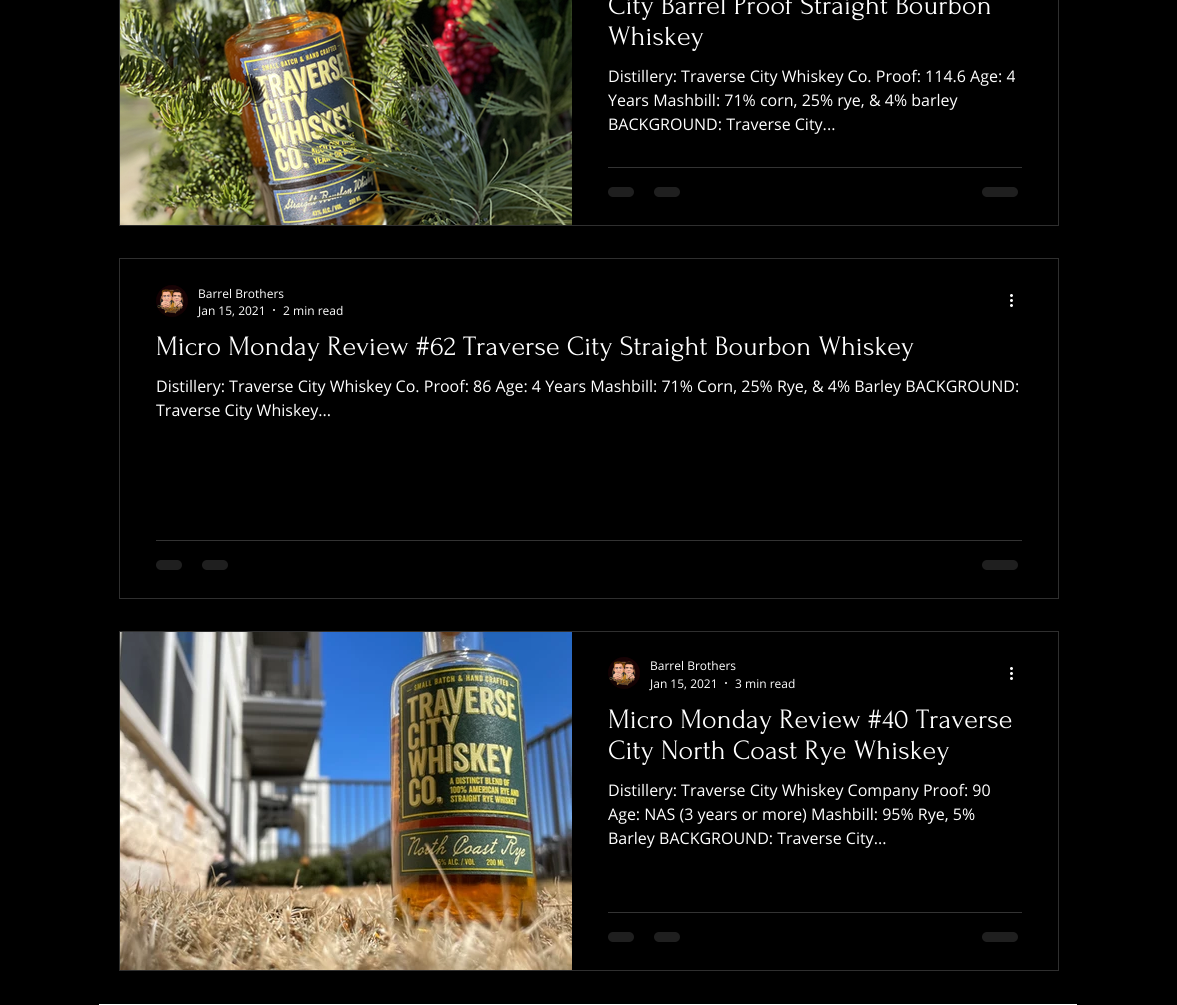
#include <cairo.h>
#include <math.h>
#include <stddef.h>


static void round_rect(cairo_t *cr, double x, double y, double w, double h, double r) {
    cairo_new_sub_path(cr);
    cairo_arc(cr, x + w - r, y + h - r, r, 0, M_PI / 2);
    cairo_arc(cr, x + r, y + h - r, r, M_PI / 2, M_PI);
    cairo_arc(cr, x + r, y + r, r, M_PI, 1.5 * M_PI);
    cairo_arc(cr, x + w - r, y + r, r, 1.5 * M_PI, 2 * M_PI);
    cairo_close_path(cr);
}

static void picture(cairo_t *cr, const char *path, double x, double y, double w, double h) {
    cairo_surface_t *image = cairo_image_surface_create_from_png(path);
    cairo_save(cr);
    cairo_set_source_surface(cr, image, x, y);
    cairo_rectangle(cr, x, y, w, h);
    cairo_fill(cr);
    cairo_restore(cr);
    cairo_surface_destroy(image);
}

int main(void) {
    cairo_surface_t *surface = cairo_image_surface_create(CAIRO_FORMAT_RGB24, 1177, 1005);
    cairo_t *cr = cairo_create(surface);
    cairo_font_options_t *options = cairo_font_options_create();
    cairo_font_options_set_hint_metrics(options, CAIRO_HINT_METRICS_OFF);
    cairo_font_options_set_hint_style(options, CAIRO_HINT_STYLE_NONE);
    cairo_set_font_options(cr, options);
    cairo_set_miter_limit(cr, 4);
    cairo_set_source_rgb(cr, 0, 0, 0);
    cairo_paint(cr);
    cairo_rectangle(cr, 119.5, -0.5, 939, 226);
    cairo_set_source_rgb(cr, 0.184, 0.184, 0.184);
    cairo_set_line_width(cr, 1);
    cairo_stroke(cr);
    picture(cr, "img1.png", 120, 0, 452, 225);
    cairo_select_font_face(cr, "Forum", CAIRO_FONT_SLANT_NORMAL, CAIRO_FONT_WEIGHT_NORMAL);
    cairo_set_font_size(cr, 28);
    cairo_set_source_rgb(cr, 1, 1, 1);
    cairo_move_to(cr, 608, 14);
    cairo_show_text(cr, "City Barrel Proof Straight Bourbon");
    cairo_move_to(cr, 608, 45);
    cairo_show_text(cr, "Whiskey");
    cairo_select_font_face(cr, "Open Sans", CAIRO_FONT_SLANT_NORMAL, CAIRO_FONT_WEIGHT_NORMAL);
    cairo_set_font_size(cr, 16);
    cairo_move_to(cr, 608, 82);
    cairo_show_text(cr, "Distillery: Traverse City Whiskey Co. Proof: 114.6 Age: 4");
    cairo_move_to(cr, 608, 106);
    cairo_show_text(cr, "Years Mashbill: 71% corn, 25% rye, & 4% barley");
    cairo_move_to(cr, 608, 130);
    cairo_show_text(cr, "BACKGROUND: Traverse City...");
    cairo_set_source_rgb(cr, 0.2, 0.2, 0.2);
    cairo_rectangle(cr, 608, 167, 414, 1);
    cairo_fill(cr);
    cairo_set_source_rgb(cr, 0.122, 0.122, 0.122);
    round_rect(cr, 608, 187, 26, 10, 5);
    cairo_fill(cr);
    round_rect(cr, 654, 187, 26, 10, 5);
    cairo_fill(cr);
    round_rect(cr, 982, 187, 36, 10, 5);
    cairo_fill(cr);
    cairo_rectangle(cr, 119.5, 258.5, 939, 340);
    cairo_set_source_rgb(cr, 0.184, 0.184, 0.184);
    cairo_stroke(cr);
    picture(cr, "img2.png", 156, 285, 32, 32);
    cairo_set_font_size(cr, 12);
    cairo_set_source_rgb(cr, 1, 1, 1);
    cairo_move_to(cr, 198, 298);
    cairo_show_text(cr, "Barrel Brothers");
    cairo_move_to(cr, 198, 315);
    cairo_show_text(cr, "Jan 15, 2021");
    cairo_new_path(cr);
    cairo_arc(cr, 274, 310, 1, 0, 2 * M_PI);
    cairo_fill(cr);
    cairo_move_to(cr, 283, 315);
    cairo_show_text(cr, "2 min read");
    picture(cr, "img3.png", 1010, 294, 3, 13);
    cairo_select_font_face(cr, "Forum", CAIRO_FONT_SLANT_NORMAL, CAIRO_FONT_WEIGHT_NORMAL);
    cairo_set_font_size(cr, 28);
    cairo_move_to(cr, 156, 355);
    cairo_show_text(cr, "Micro Monday Review #62 Traverse City Straight Bourbon Whiskey");
    cairo_select_font_face(cr, "Open Sans", CAIRO_FONT_SLANT_NORMAL, CAIRO_FONT_WEIGHT_NORMAL);
    cairo_set_font_size(cr, 16);
    cairo_move_to(cr, 156, 392);
    cairo_show_text(cr, "Distillery: Traverse City Whiskey Co. Proof: 86 Age: 4 Years Mashbill: 71% Corn, 25% Rye, & 4% Barley BACKGROUND:");
    cairo_move_to(cr, 156, 416);
    cairo_show_text(cr, "Traverse City Whiskey...");
    cairo_set_source_rgb(cr, 0.2, 0.2, 0.2);
    cairo_rectangle(cr, 156, 540, 866, 1);
    cairo_fill(cr);
    cairo_set_source_rgb(cr, 0.122, 0.122, 0.122);
    round_rect(cr, 156, 560, 26, 10, 5);
    cairo_fill(cr);
    round_rect(cr, 202, 560, 26, 10, 5);
    cairo_fill(cr);
    round_rect(cr, 982, 560, 36, 10, 5);
    cairo_fill(cr);
    cairo_rectangle(cr, 119.5, 631.5, 939, 339);
    cairo_set_source_rgb(cr, 0.184, 0.184, 0.184);
    cairo_stroke(cr);
    picture(cr, "img4.png", 120, 632, 452, 338);
    picture(cr, "img5.png", 608, 657, 32, 32);
    cairo_set_font_size(cr, 12);
    cairo_set_source_rgb(cr, 1, 1, 1);
    cairo_move_to(cr, 650, 670);
    cairo_show_text(cr, "Barrel Brothers");
    cairo_move_to(cr, 650, 688);
    cairo_show_text(cr, "Jan 15, 2021");
    cairo_new_path(cr);
    cairo_arc(cr, 726, 683, 1, 0, 2 * M_PI);
    cairo_fill(cr);
    cairo_move_to(cr, 735, 688);
    cairo_show_text(cr, "3 min read");
    picture(cr, "img3.png", 1010, 667, 3, 13);
    cairo_select_font_face(cr, "Forum", CAIRO_FONT_SLANT_NORMAL, CAIRO_FONT_WEIGHT_NORMAL);
    cairo_set_font_size(cr, 28);
    cairo_move_to(cr, 608, 728);
    cairo_show_text(cr, "Micro Monday Review #40 Traverse");
    cairo_move_to(cr, 608, 759);
    cairo_show_text(cr, "City North Coast Rye Whiskey");
    cairo_select_font_face(cr, "Open Sans", CAIRO_FONT_SLANT_NORMAL, CAIRO_FONT_WEIGHT_NORMAL);
    cairo_set_font_size(cr, 16);
    cairo_move_to(cr, 608, 796);
    cairo_show_text(cr, "Distillery: Traverse City Whiskey Company Proof: 90");
    cairo_move_to(cr, 608, 820);
    cairo_show_text(cr, "Age: NAS (3 years or more) Mashbill: 95% Rye, 5%");
    cairo_move_to(cr, 608, 844);
    cairo_show_text(cr, "Barley BACKGROUND: Traverse City...");
    cairo_set_source_rgb(cr, 0.2, 0.2, 0.2);
    cairo_rectangle(cr, 608, 912, 414, 1);
    cairo_fill(cr);
    cairo_set_source_rgb(cr, 0.122, 0.122, 0.122);
    round_rect(cr, 608, 932, 26, 10, 5);
    cairo_fill(cr);
    round_rect(cr, 654, 932, 26, 10, 5);
    cairo_fill(cr);
    round_rect(cr, 982, 932, 36, 10, 5);
    cairo_fill(cr);
    cairo_set_source_rgb(cr, 1, 1, 1);
    cairo_rectangle(cr, 99, 1004, 978, 1);
    cairo_fill(cr);
    cairo_surface_write_to_png(surface, "page.png");
    cairo_font_options_destroy(options);
    cairo_destroy(cr);
    cairo_surface_destroy(surface);
    return 0;
}
